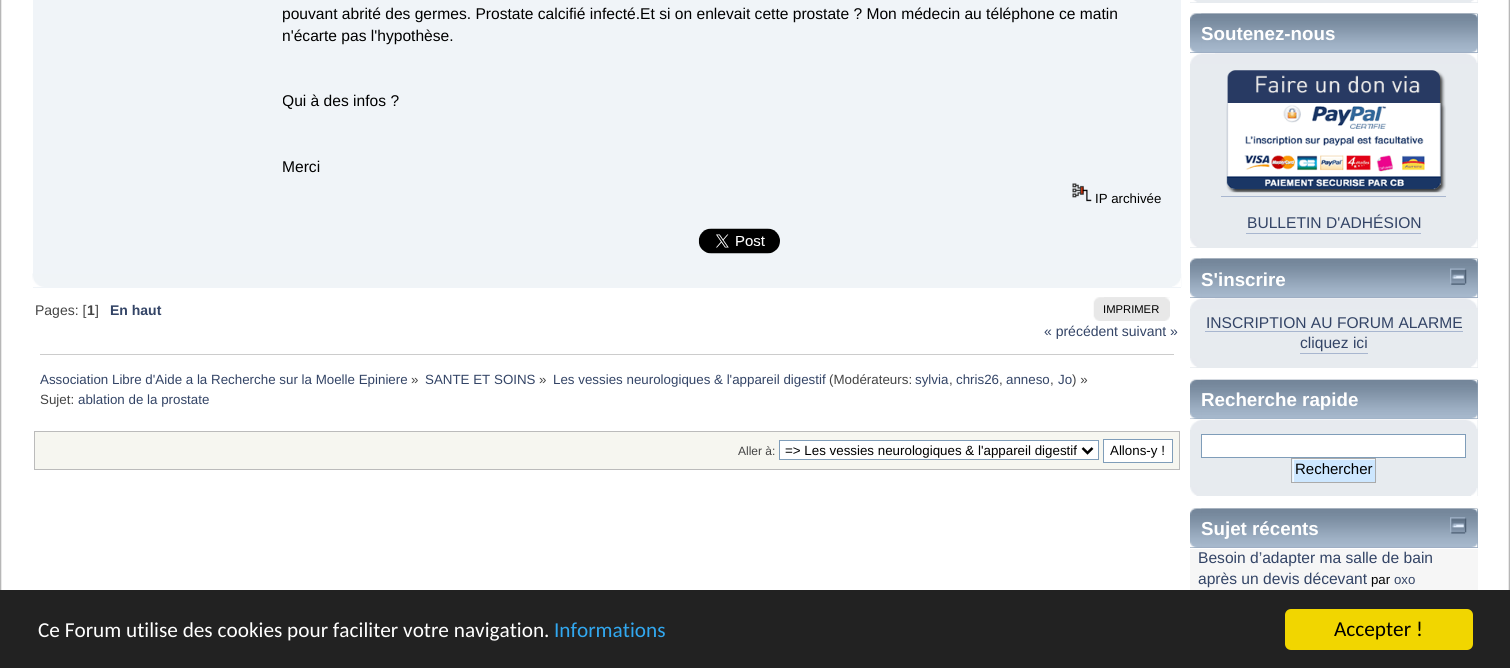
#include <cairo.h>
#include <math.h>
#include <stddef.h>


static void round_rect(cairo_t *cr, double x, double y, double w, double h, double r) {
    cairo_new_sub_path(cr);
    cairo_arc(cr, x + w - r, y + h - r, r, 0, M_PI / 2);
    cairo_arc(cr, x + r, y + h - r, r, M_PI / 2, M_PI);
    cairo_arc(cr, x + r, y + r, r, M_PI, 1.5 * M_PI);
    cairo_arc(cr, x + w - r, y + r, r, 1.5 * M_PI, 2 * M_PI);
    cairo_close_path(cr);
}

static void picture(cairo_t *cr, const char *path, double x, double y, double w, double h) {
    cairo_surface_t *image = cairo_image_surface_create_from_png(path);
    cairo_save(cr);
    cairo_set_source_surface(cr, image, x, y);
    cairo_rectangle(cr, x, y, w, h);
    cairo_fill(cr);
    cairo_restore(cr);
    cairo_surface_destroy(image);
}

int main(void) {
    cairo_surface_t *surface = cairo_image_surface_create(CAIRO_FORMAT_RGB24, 1510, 668);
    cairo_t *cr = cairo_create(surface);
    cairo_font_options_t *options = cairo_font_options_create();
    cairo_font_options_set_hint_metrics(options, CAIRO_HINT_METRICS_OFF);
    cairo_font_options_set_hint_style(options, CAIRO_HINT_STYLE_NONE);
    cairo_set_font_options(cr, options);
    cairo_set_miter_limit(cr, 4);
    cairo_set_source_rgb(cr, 1, 1, 1);
    cairo_paint(cr);
    picture(cr, "img1.png", 0, 0, 2, 590);
    picture(cr, "img2.png", 1508, 0, 2, 590);
    cairo_set_source_rgb(cr, 0.941, 0.957, 0.969);
    cairo_rectangle(cr, 33, 0, 1148, 288);
    cairo_fill(cr);
    cairo_select_font_face(cr, "Liberation Sans", CAIRO_FONT_SLANT_NORMAL, CAIRO_FONT_WEIGHT_NORMAL);
    cairo_set_font_size(cr, 15.6);
    cairo_set_source_rgb(cr, 0, 0, 0);
    cairo_move_to(cr, 282, 19);
    cairo_show_text(cr, "pouvant abrité des germes. Prostate calcifié infecté.Et si on enlevait cette prostate ? Mon médecin au téléphone ce matin");
    cairo_move_to(cr, 282, 41);
    cairo_show_text(cr, "n'écarte pas l'hypothèse.");
    cairo_save(cr);
    cairo_rectangle(cr, 283, 0, 898, 183);
    cairo_clip(cr);
    cairo_move_to(cr, 282, 106);
    cairo_show_text(cr, "Qui à des infos ?");
    cairo_restore(cr);
    cairo_move_to(cr, 282, 172);
    cairo_show_text(cr, "Merci");
    picture(cr, "img3.png", 1072, 183, 20, 19);
    cairo_set_font_size(cr, 13.25);
    cairo_move_to(cr, 1095, 203);
    cairo_show_text(cr, "IP archivée");
    picture(cr, "img4.png", 698, 228, 82, 26);
    picture(cr, "img5.png", 32, 273, 1150, 14);
    picture(cr, "img6.png", 1172, 278, 9, 9);
    cairo_set_font_size(cr, 14);
    cairo_set_source_rgb(cr, 0.267, 0.267, 0.267);
    cairo_move_to(cr, 35, 315);
    cairo_show_text(cr, "Pages: [");
    cairo_select_font_face(cr, "Liberation Sans", CAIRO_FONT_SLANT_NORMAL, CAIRO_FONT_WEIGHT_BOLD);
    cairo_move_to(cr, 87, 315);
    cairo_show_text(cr, "1");
    cairo_select_font_face(cr, "Liberation Sans", CAIRO_FONT_SLANT_NORMAL, CAIRO_FONT_WEIGHT_NORMAL);
    cairo_move_to(cr, 95, 315);
    cairo_show_text(cr, "]");
    cairo_select_font_face(cr, "Liberation Sans", CAIRO_FONT_SLANT_NORMAL, CAIRO_FONT_WEIGHT_BOLD);
    cairo_set_source_rgb(cr, 0.2, 0.267, 0.4);
    cairo_move_to(cr, 110, 315);
    cairo_show_text(cr, "En haut");
    picture(cr, "img7.png", 1093, 297, 77, 24);
    picture(cr, "img8.png", 1104, 297, 66, 24);
    cairo_select_font_face(cr, "Liberation Sans", CAIRO_FONT_SLANT_NORMAL, CAIRO_FONT_WEIGHT_NORMAL);
    cairo_set_font_size(cr, 11.25);
    cairo_set_source_rgb(cr, 0, 0, 0);
    cairo_move_to(cr, 1103, 313);
    cairo_show_text(cr, "IMPRIMER");
    cairo_set_font_size(cr, 14);
    cairo_set_source_rgb(cr, 0.2, 0.267, 0.4);
    cairo_move_to(cr, 1044, 336);
    cairo_show_text(cr, "« précédent suivant »");
    cairo_set_source_rgb(cr, 0.8, 0.8, 0.8);
    cairo_rectangle(cr, 40, 354, 1134, 1);
    cairo_fill(cr);
    cairo_set_font_size(cr, 13.35);
    cairo_set_source_rgb(cr, 0.2, 0.267, 0.4);
    cairo_move_to(cr, 40, 384);
    cairo_show_text(cr, "Association Libre d'Aide a la Recherche sur la Moelle Epiniere");
    cairo_set_source_rgb(cr, 0.267, 0.267, 0.267);
    cairo_move_to(cr, 411, 384);
    cairo_show_text(cr, "»");
    cairo_set_source_rgb(cr, 0.2, 0.267, 0.4);
    cairo_move_to(cr, 425, 384);
    cairo_show_text(cr, "SANTE ET SOINS");
    cairo_set_source_rgb(cr, 0.267, 0.267, 0.267);
    cairo_move_to(cr, 539, 384);
    cairo_show_text(cr, "»");
    cairo_set_source_rgb(cr, 0.2, 0.267, 0.4);
    cairo_move_to(cr, 553, 384);
    cairo_show_text(cr, "Les vessies neurologiques & l'appareil digestif");
    cairo_set_source_rgb(cr, 0.267, 0.267, 0.267);
    cairo_move_to(cr, 829, 384);
    cairo_show_text(cr, "(Modérateurs:");
    cairo_set_source_rgb(cr, 0.2, 0.267, 0.4);
    cairo_move_to(cr, 915, 384);
    cairo_show_text(cr, "sylvia");
    cairo_set_source_rgb(cr, 0.267, 0.267, 0.267);
    cairo_move_to(cr, 949, 384);
    cairo_show_text(cr, ",");
    cairo_set_source_rgb(cr, 0.2, 0.267, 0.4);
    cairo_move_to(cr, 956, 384);
    cairo_show_text(cr, "chris26");
    cairo_set_source_rgb(cr, 0.267, 0.267, 0.267);
    cairo_move_to(cr, 999, 384);
    cairo_show_text(cr, ",");
    cairo_set_source_rgb(cr, 0.2, 0.267, 0.4);
    cairo_move_to(cr, 1006, 384);
    cairo_show_text(cr, "anneso");
    cairo_set_source_rgb(cr, 0.267, 0.267, 0.267);
    cairo_move_to(cr, 1050, 384);
    cairo_show_text(cr, ",");
    cairo_set_source_rgb(cr, 0.2, 0.267, 0.4);
    cairo_move_to(cr, 1058, 384);
    cairo_show_text(cr, "Jo");
    cairo_set_source_rgb(cr, 0.267, 0.267, 0.267);
    cairo_move_to(cr, 1072, 384);
    cairo_show_text(cr, ") »");
    cairo_move_to(cr, 40, 404);
    cairo_show_text(cr, "Sujet:");
    cairo_set_source_rgb(cr, 0.2, 0.267, 0.4);
    cairo_move_to(cr, 78, 404);
    cairo_show_text(cr, "ablation de la prostate");
    cairo_set_source_rgb(cr, 0.961, 0.961, 0.941);
    cairo_rectangle(cr, 34.5, 431.5, 1145, 38);
    cairo_fill_preserve(cr);
    cairo_set_source_rgb(cr, 0.733, 0.733, 0.733);
    cairo_set_line_width(cr, 1);
    cairo_stroke(cr);
    cairo_set_font_size(cr, 12);
    cairo_set_source_rgb(cr, 0.267, 0.267, 0.267);
    cairo_move_to(cr, 738, 455);
    cairo_show_text(cr, "Aller à:");
    cairo_set_source_rgb(cr, 1, 1, 1);
    cairo_rectangle(cr, 779.5, 440.5, 319, 19);
    cairo_fill_preserve(cr);
    cairo_set_source_rgb(cr, 0.498, 0.616, 0.725);
    cairo_stroke(cr);
    cairo_new_path(cr);
    cairo_move_to(cr, 1082.5, 448);
    cairo_line_to(cr, 1087.5, 453);
    cairo_line_to(cr, 1092.5, 448);
    cairo_set_source_rgb(cr, 0, 0, 0);
    cairo_set_line_width(cr, 2.5);
    cairo_stroke(cr);
    cairo_set_font_size(cr, 13.35);
    cairo_move_to(cr, 785, 455);
    cairo_show_text(cr, "=> Les vessies neurologiques & l'appareil digestif");
    cairo_set_source_rgb(cr, 1, 1, 1);
    cairo_rectangle(cr, 1103.5, 439.5, 69, 23);
    cairo_fill_preserve(cr);
    cairo_set_source_rgb(cr, 0.498, 0.616, 0.725);
    cairo_set_line_width(cr, 1);
    cairo_stroke(cr);
    cairo_set_source_rgb(cr, 0, 0, 0);
    cairo_move_to(cr, 1110, 455);
    cairo_show_text(cr, "Allons-y !");
    cairo_set_source_rgb(cr, 0.906, 0.918, 0.937);
    cairo_rectangle(cr, 1190, 0, 288, 3);
    cairo_fill(cr);
    picture(cr, "img9.png", 1190, 0, 7, 3);
    picture(cr, "img10.png", 1471, 0, 7, 3);
    cairo_set_source_rgb(cr, 0.6, 0.671, 0.749);
    cairo_rectangle(cr, 1190, 14, 288, 39);
    cairo_fill(cr);
    picture(cr, "img11.png", 1190, 13, 288, 40);
    picture(cr, "img12.png", 1201, 13, 277, 40);
    cairo_select_font_face(cr, "Liberation Sans", CAIRO_FONT_SLANT_NORMAL, CAIRO_FONT_WEIGHT_BOLD);
    cairo_set_font_size(cr, 18.75);
    cairo_set_source_rgb(cr, 1, 1, 1);
    cairo_move_to(cr, 1201, 40);
    cairo_show_text(cr, "Soutenez-nous");
    cairo_set_source_rgb(cr, 0.906, 0.918, 0.937);
    cairo_rectangle(cr, 1190, 54, 288, 194);
    cairo_fill(cr);
    picture(cr, "img13.png", 1190, 53, 288, 11);
    picture(cr, "img14.png", 1215, 53, 263, 10);
    picture(cr, "img15.png", 1226, 70, 220, 123);
    cairo_set_source_rgb(cr, 0.659, 0.714, 0.812);
    cairo_rectangle(cr, 1221, 196, 225, 1);
    cairo_fill(cr);
    cairo_select_font_face(cr, "Liberation Sans", CAIRO_FONT_SLANT_NORMAL, CAIRO_FONT_WEIGHT_NORMAL);
    cairo_set_font_size(cr, 15.6);
    cairo_set_source_rgb(cr, 0.2, 0.267, 0.4);
    cairo_move_to(cr, 1247, 228);
    cairo_show_text(cr, "BULLETIN D'ADHÉSION");
    cairo_set_source_rgb(cr, 0.659, 0.714, 0.812);
    cairo_rectangle(cr, 1246, 233, 175, 1);
    cairo_fill(cr);
    picture(cr, "img16.png", 1190, 238, 7, 10);
    picture(cr, "img17.png", 1471, 239, 7, 9);
    cairo_set_source_rgb(cr, 0.6, 0.671, 0.749);
    cairo_rectangle(cr, 1190, 259, 288, 39);
    cairo_fill(cr);
    picture(cr, "img11.png", 1190, 258, 288, 40);
    picture(cr, "img12.png", 1201, 258, 277, 40);
    cairo_select_font_face(cr, "Liberation Sans", CAIRO_FONT_SLANT_NORMAL, CAIRO_FONT_WEIGHT_BOLD);
    cairo_set_font_size(cr, 18.75);
    cairo_set_source_rgb(cr, 1, 1, 1);
    cairo_move_to(cr, 1201, 286);
    cairo_show_text(cr, "S'inscrire");
    picture(cr, "img18.png", 1450, 268, 17, 17);
    cairo_set_source_rgb(cr, 0.906, 0.918, 0.937);
    cairo_rectangle(cr, 1190, 299, 288, 69);
    cairo_fill(cr);
    picture(cr, "img13.png", 1190, 298, 288, 11);
    picture(cr, "img14.png", 1215, 298, 263, 10);
    cairo_select_font_face(cr, "Liberation Sans", CAIRO_FONT_SLANT_NORMAL, CAIRO_FONT_WEIGHT_NORMAL);
    cairo_set_font_size(cr, 15.6);
    cairo_set_source_rgb(cr, 0.2, 0.267, 0.4);
    cairo_move_to(cr, 1206, 328);
    cairo_show_text(cr, "INSCRIPTION AU FORUM ALARME");
    cairo_set_source_rgb(cr, 0.659, 0.714, 0.812);
    cairo_rectangle(cr, 1205, 331, 258, 1);
    cairo_fill(cr);
    cairo_set_source_rgb(cr, 0.2, 0.267, 0.4);
    cairo_move_to(cr, 1300, 348);
    cairo_show_text(cr, "cliquez ici");
    cairo_set_source_rgb(cr, 0.659, 0.714, 0.812);
    cairo_rectangle(cr, 1300, 353, 68, 1);
    cairo_fill(cr);
    picture(cr, "img16.png", 1190, 358, 7, 10);
    picture(cr, "img17.png", 1471, 359, 7, 9);
    cairo_set_source_rgb(cr, 0.6, 0.671, 0.749);
    cairo_rectangle(cr, 1190, 380, 288, 39);
    cairo_fill(cr);
    picture(cr, "img19.png", 1190, 379, 288, 40);
    picture(cr, "img20.png", 1201, 379, 277, 40);
    cairo_select_font_face(cr, "Liberation Sans", CAIRO_FONT_SLANT_NORMAL, CAIRO_FONT_WEIGHT_BOLD);
    cairo_set_font_size(cr, 18.75);
    cairo_set_source_rgb(cr, 1, 1, 1);
    cairo_move_to(cr, 1201, 406);
    cairo_show_text(cr, "Recherche rapide");
    cairo_set_source_rgb(cr, 0.906, 0.918, 0.937);
    cairo_rectangle(cr, 1190, 420, 288, 76);
    cairo_fill(cr);
    picture(cr, "img21.png", 1190, 419, 287, 11);
    picture(cr, "img22.png", 1215, 419, 263, 10);
    cairo_set_source_rgb(cr, 1, 1, 1);
    cairo_rectangle(cr, 1201.5, 434.5, 264, 23);
    cairo_fill_preserve(cr);
    cairo_set_source_rgb(cr, 0.498, 0.616, 0.725);
    cairo_stroke(cr);
    cairo_set_source_rgb(cr, 0.804, 0.906, 1);
    cairo_rectangle(cr, 1292, 459, 1, 23);
    cairo_fill(cr);
    picture(cr, "img23.png", 1292, 458, 85, 24);
    cairo_rectangle(cr, 1291.5, 458.5, 84, 24);
    cairo_set_source_rgb(cr, 0.667, 0.667, 0.667);
    cairo_stroke(cr);
    cairo_select_font_face(cr, "Liberation Sans", CAIRO_FONT_SLANT_NORMAL, CAIRO_FONT_WEIGHT_NORMAL);
    cairo_set_font_size(cr, 15);
    cairo_set_source_rgb(cr, 0, 0, 0);
    cairo_move_to(cr, 1295, 474);
    cairo_show_text(cr, "Rechercher");
    picture(cr, "img24.png", 1190, 487, 7, 9);
    picture(cr, "img25.png", 1471, 488, 7, 8);
    cairo_set_source_rgb(cr, 0.6, 0.671, 0.749);
    cairo_rectangle(cr, 1190, 509, 288, 39);
    cairo_fill(cr);
    picture(cr, "img11.png", 1190, 508, 288, 40);
    picture(cr, "img12.png", 1201, 508, 277, 40);
    cairo_select_font_face(cr, "Liberation Sans", CAIRO_FONT_SLANT_NORMAL, CAIRO_FONT_WEIGHT_BOLD);
    cairo_set_font_size(cr, 18.75);
    cairo_set_source_rgb(cr, 1, 1, 1);
    cairo_move_to(cr, 1201, 535);
    cairo_show_text(cr, "Sujet récents");
    picture(cr, "img26.png", 1450, 517, 17, 17);
    cairo_set_source_rgb(cr, 0.961, 0.961, 0.961);
    cairo_rectangle(cr, 1190, 549, 288, 41);
    cairo_fill(cr);
    cairo_select_font_face(cr, "Liberation Sans", CAIRO_FONT_SLANT_NORMAL, CAIRO_FONT_WEIGHT_NORMAL);
    cairo_set_font_size(cr, 15.6);
    cairo_set_source_rgb(cr, 0.2, 0.267, 0.4);
    cairo_move_to(cr, 1198, 563);
    cairo_show_text(cr, "Besoin d’adapter ma salle de bain");
    cairo_move_to(cr, 1198, 584);
    cairo_show_text(cr, "après un devis décevant");
    cairo_set_font_size(cr, 13.25);
    cairo_set_source_rgb(cr, 0, 0, 0);
    cairo_move_to(cr, 1371, 584);
    cairo_show_text(cr, "par");
    cairo_set_source_rgb(cr, 0.2, 0.267, 0.4);
    cairo_move_to(cr, 1394, 584);
    cairo_show_text(cr, "oxo");
    cairo_set_source_rgb(cr, 0.133, 0.133, 0.133);
    cairo_rectangle(cr, 0, 590, 1510, 78);
    cairo_fill(cr);
    cairo_select_font_face(cr, "Carlito", CAIRO_FONT_SLANT_NORMAL, CAIRO_FONT_WEIGHT_NORMAL);
    cairo_set_font_size(cr, 21.25);
    cairo_set_source_rgb(cr, 1, 1, 1);
    cairo_move_to(cr, 38, 637);
    cairo_show_text(cr, "Ce Forum utilise des cookies pour faciliter votre navigation.");
    cairo_set_source_rgb(cr, 0.192, 0.659, 0.941);
    cairo_move_to(cr, 554, 637);
    cairo_show_text(cr, "Informations");
    cairo_set_source_rgb(cr, 0.945, 0.839, 0);
    round_rect(cr, 1285, 609, 188, 41, 6);
    cairo_fill(cr);
    cairo_set_source_rgb(cr, 0, 0, 0);
    cairo_move_to(cr, 1334, 636);
    cairo_show_text(cr, "Accepter !");
    cairo_surface_write_to_png(surface, "page.png");
    cairo_font_options_destroy(options);
    cairo_destroy(cr);
    cairo_surface_destroy(surface);
    return 0;
}
